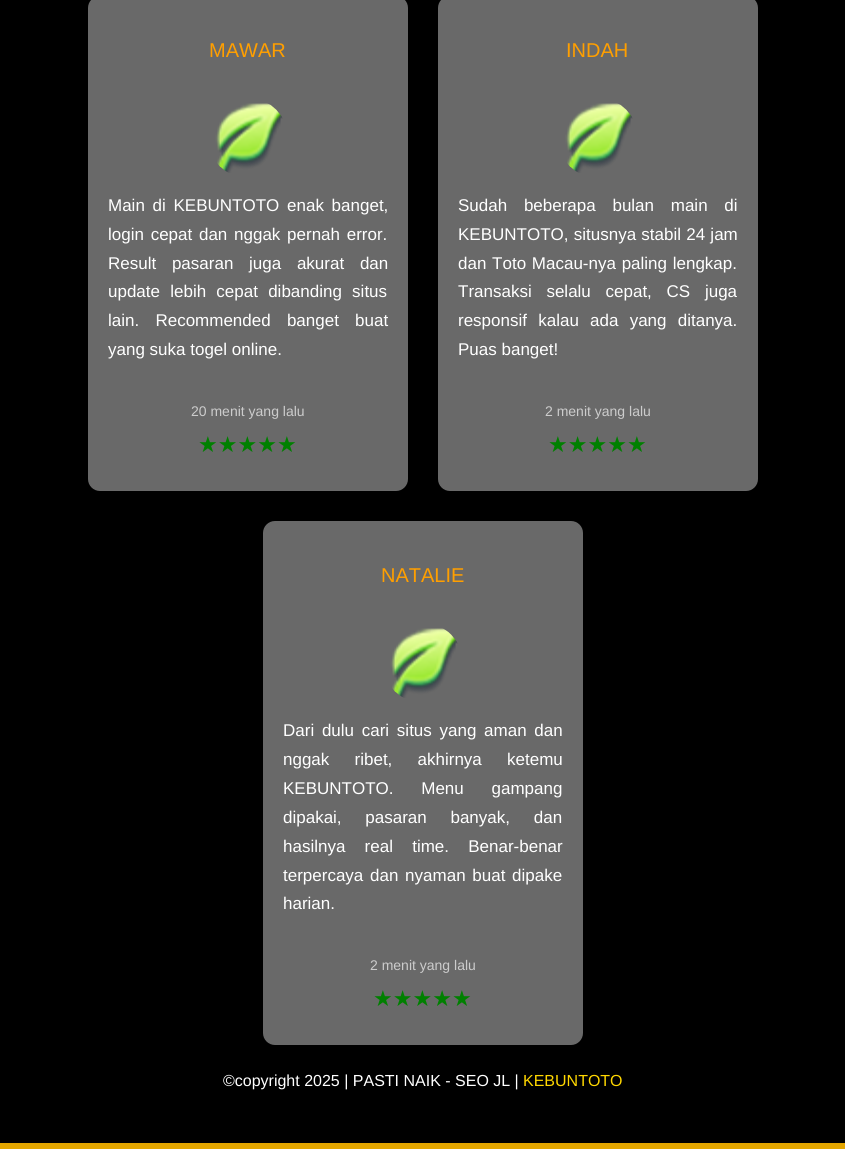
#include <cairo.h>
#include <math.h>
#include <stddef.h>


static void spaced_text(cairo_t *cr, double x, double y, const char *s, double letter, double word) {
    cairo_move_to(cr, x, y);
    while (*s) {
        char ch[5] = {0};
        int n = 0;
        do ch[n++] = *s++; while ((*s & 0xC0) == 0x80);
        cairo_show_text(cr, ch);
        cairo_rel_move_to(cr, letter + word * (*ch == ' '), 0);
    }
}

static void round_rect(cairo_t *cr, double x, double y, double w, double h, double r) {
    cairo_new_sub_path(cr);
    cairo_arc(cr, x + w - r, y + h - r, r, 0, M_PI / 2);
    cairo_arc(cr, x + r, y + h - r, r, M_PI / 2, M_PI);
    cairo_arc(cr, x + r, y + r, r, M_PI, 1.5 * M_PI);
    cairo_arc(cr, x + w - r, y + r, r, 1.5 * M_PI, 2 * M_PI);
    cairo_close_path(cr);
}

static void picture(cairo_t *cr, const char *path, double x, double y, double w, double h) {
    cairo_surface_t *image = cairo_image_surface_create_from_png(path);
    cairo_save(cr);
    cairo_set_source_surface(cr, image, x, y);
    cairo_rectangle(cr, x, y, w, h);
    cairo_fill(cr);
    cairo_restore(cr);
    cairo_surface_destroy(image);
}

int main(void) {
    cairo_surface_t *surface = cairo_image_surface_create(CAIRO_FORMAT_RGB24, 845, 1149);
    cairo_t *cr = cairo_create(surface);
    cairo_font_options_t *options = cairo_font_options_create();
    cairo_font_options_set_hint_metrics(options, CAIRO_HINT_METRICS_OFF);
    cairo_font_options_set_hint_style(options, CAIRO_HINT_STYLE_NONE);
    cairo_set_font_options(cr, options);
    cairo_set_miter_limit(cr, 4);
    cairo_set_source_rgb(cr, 0, 0, 0);
    cairo_paint(cr);
    cairo_set_source_rgb(cr, 0.894, 0.651, 0);
    cairo_rectangle(cr, 0, 1143, 845, 6);
    cairo_fill(cr);
    cairo_set_source_rgb(cr, 0.412, 0.412, 0.412);
    round_rect(cr, 88, -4, 320, 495, 12);
    cairo_fill(cr);
    cairo_select_font_face(cr, "Liberation Sans", CAIRO_FONT_SLANT_NORMAL, CAIRO_FONT_WEIGHT_NORMAL);
    cairo_set_font_size(cr, 20);
    cairo_set_source_rgb(cr, 1, 0.624, 0);
    cairo_move_to(cr, 209, 57);
    cairo_show_text(cr, "MAWAR");
    picture(cr, "img1.png", 215, 103, 68, 70);
    cairo_set_font_size(cr, 17);
    cairo_set_source_rgb(cr, 1, 1, 1);
    spaced_text(cr, 108, 211, "Main di KEBUNTOTO enak banget,", 0, 3);
    spaced_text(cr, 108, 240, "login cepat dan nggak pernah error.", 0, 2);
    spaced_text(cr, 108, 269, "Result pasaran juga akurat dan", 0, 11);
    spaced_text(cr, 108, 297, "update lebih cepat dibanding situs", 0, 5.5);
    spaced_text(cr, 108, 326, "lain. Recommended banget buat", 0, 11.5);
    cairo_move_to(cr, 108, 355);
    cairo_show_text(cr, "yang suka togel online.");
    cairo_set_font_size(cr, 14);
    cairo_set_source_rgb(cr, 0.8, 0.8, 0.8);
    cairo_move_to(cr, 191, 416);
    cairo_show_text(cr, "20 menit yang lalu");
    cairo_select_font_face(cr, "DejaVu Sans", CAIRO_FONT_SLANT_NORMAL, CAIRO_FONT_WEIGHT_NORMAL);
    cairo_set_font_size(cr, 22);
    cairo_set_source_rgb(cr, 0, 0.502, 0);
    cairo_move_to(cr, 198, 452);
    cairo_show_text(cr, "★★★★★");
    cairo_set_source_rgb(cr, 0.412, 0.412, 0.412);
    round_rect(cr, 438, -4, 320, 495, 12);
    cairo_fill(cr);
    cairo_select_font_face(cr, "Liberation Sans", CAIRO_FONT_SLANT_NORMAL, CAIRO_FONT_WEIGHT_NORMAL);
    cairo_set_font_size(cr, 20);
    cairo_set_source_rgb(cr, 1, 0.624, 0);
    cairo_move_to(cr, 566, 57);
    cairo_show_text(cr, "INDAH");
    picture(cr, "img2.png", 565, 103, 68, 70);
    cairo_set_font_size(cr, 17);
    cairo_set_source_rgb(cr, 1, 1, 1);
    spaced_text(cr, 458, 211, "Sudah beberapa bulan main di", 0, 12);
    spaced_text(cr, 458, 240, "KEBUNTOTO, situsnya stabil 24 jam", 0, 0.5);
    spaced_text(cr, 458, 269, "dan Toto Macau-nya paling lengkap.", 0, 1);
    spaced_text(cr, 458, 297, "Transaksi selalu cepat, CS juga", 0, 10);
    spaced_text(cr, 458, 326, "responsif kalau ada yang ditanya.", 0, 6.5);
    cairo_move_to(cr, 458, 355);
    cairo_show_text(cr, "Puas banget!");
    cairo_set_font_size(cr, 14);
    cairo_set_source_rgb(cr, 0.8, 0.8, 0.8);
    cairo_move_to(cr, 545, 416);
    cairo_show_text(cr, "2 menit yang lalu");
    cairo_select_font_face(cr, "DejaVu Sans", CAIRO_FONT_SLANT_NORMAL, CAIRO_FONT_WEIGHT_NORMAL);
    cairo_set_font_size(cr, 22);
    cairo_set_source_rgb(cr, 0, 0.502, 0);
    cairo_move_to(cr, 548, 452);
    cairo_show_text(cr, "★★★★★");
    cairo_set_source_rgb(cr, 0.412, 0.412, 0.412);
    round_rect(cr, 263, 521, 320, 524, 12);
    cairo_fill(cr);
    cairo_select_font_face(cr, "Liberation Sans", CAIRO_FONT_SLANT_NORMAL, CAIRO_FONT_WEIGHT_NORMAL);
    cairo_set_font_size(cr, 20);
    cairo_set_source_rgb(cr, 1, 0.624, 0);
    cairo_move_to(cr, 381, 582);
    cairo_show_text(cr, "NATALIE");
    picture(cr, "img3.png", 390, 628, 68, 70);
    cairo_set_font_size(cr, 17);
    cairo_set_source_rgb(cr, 1, 1, 1);
    spaced_text(cr, 283, 736, "Dari dulu cari situs yang aman dan", 0, 3);
    spaced_text(cr, 283, 765, "nggak ribet, akhirnya ketemu", 0, 20.5);
    spaced_text(cr, 283, 794, "KEBUNTOTO. Menu gampang", 0, 23);
    spaced_text(cr, 283, 823, "dipakai, pasaran banyak, dan", 0, 19);
    spaced_text(cr, 283, 852, "hasilnya real time. Benar-benar", 0, 14.5);
    spaced_text(cr, 283, 881, "terpercaya dan nyaman buat dipake", 0, 2);
    cairo_move_to(cr, 283, 909);
    cairo_show_text(cr, "harian.");
    cairo_set_font_size(cr, 14);
    cairo_set_source_rgb(cr, 0.8, 0.8, 0.8);
    cairo_move_to(cr, 370, 970);
    cairo_show_text(cr, "2 menit yang lalu");
    cairo_select_font_face(cr, "DejaVu Sans", CAIRO_FONT_SLANT_NORMAL, CAIRO_FONT_WEIGHT_NORMAL);
    cairo_set_font_size(cr, 22);
    cairo_set_source_rgb(cr, 0, 0.502, 0);
    cairo_move_to(cr, 373, 1006);
    cairo_show_text(cr, "★★★★★");
    cairo_select_font_face(cr, "Liberation Sans", CAIRO_FONT_SLANT_NORMAL, CAIRO_FONT_WEIGHT_NORMAL);
    cairo_set_font_size(cr, 16);
    cairo_set_source_rgb(cr, 1, 1, 1);
    cairo_move_to(cr, 223, 1086);
    cairo_show_text(cr, "©copyright 2025 | PASTI NAIK - SEO JL |");
    cairo_set_source_rgb(cr, 1, 0.843, 0);
    cairo_move_to(cr, 523, 1086);
    cairo_show_text(cr, "KEBUNTOTO");
    cairo_surface_write_to_png(surface, "page.png");
    cairo_font_options_destroy(options);
    cairo_destroy(cr);
    cairo_surface_destroy(surface);
    return 0;
}
